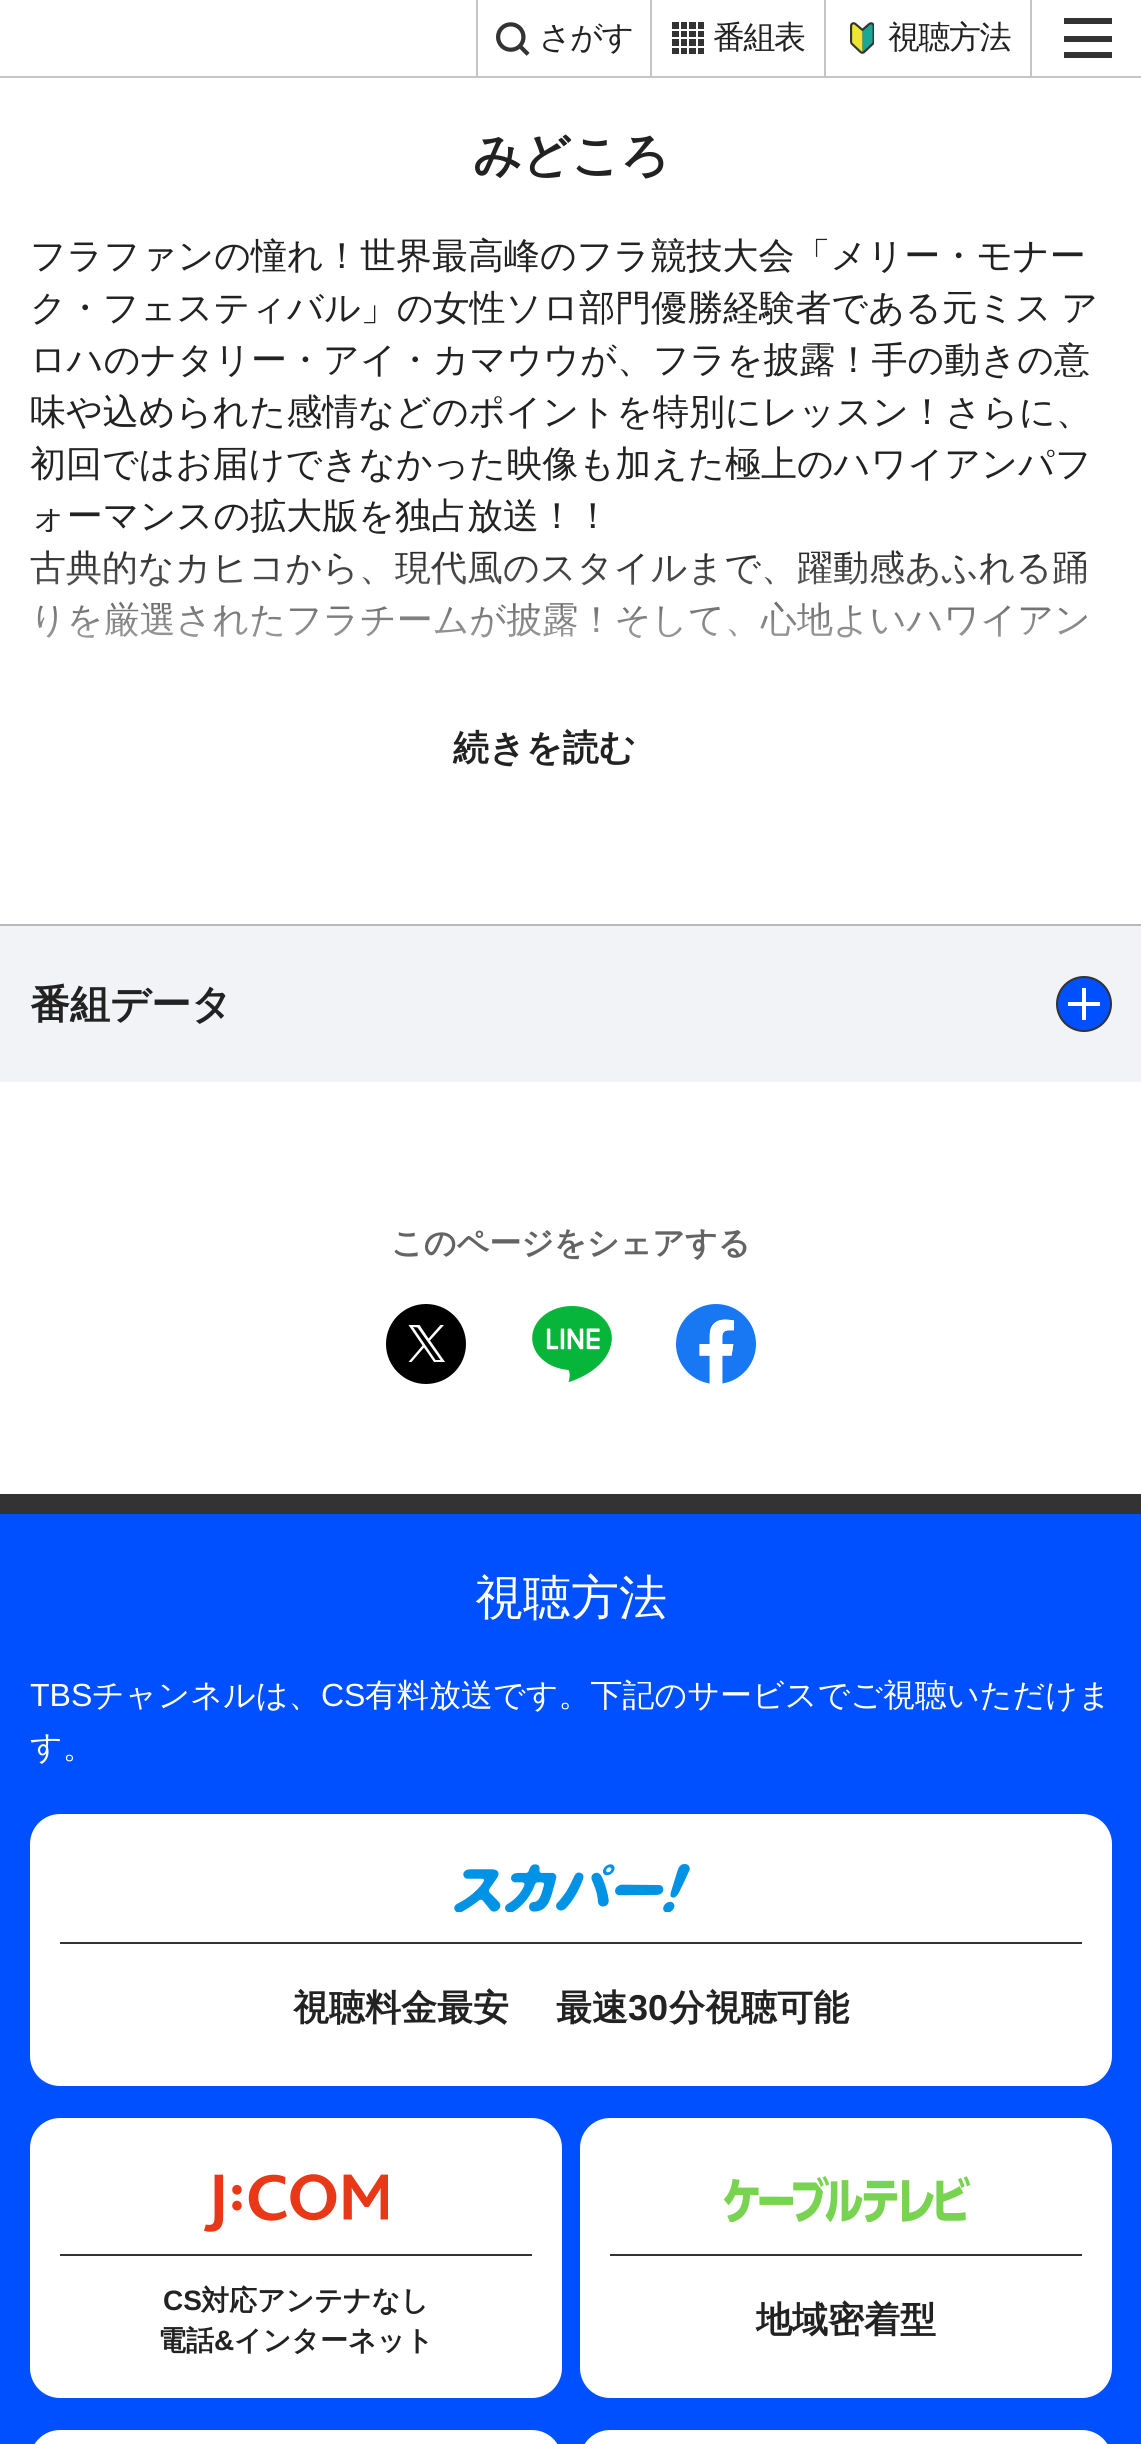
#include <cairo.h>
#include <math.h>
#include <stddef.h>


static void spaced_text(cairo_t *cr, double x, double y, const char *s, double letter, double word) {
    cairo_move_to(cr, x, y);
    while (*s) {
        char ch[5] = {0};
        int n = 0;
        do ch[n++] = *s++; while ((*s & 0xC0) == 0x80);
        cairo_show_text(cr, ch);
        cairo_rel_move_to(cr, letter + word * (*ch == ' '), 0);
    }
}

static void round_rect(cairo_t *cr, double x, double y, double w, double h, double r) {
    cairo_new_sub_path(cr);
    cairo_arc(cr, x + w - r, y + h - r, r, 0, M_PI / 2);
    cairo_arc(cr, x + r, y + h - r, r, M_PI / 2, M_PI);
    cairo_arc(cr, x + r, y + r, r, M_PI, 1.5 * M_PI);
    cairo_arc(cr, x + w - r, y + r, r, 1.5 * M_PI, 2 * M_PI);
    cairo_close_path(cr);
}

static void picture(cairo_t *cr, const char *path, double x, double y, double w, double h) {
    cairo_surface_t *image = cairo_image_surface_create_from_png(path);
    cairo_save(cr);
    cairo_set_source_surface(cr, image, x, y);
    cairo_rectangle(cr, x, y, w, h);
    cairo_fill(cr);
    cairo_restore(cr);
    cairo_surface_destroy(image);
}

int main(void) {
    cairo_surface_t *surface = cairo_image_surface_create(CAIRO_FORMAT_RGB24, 1141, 2444);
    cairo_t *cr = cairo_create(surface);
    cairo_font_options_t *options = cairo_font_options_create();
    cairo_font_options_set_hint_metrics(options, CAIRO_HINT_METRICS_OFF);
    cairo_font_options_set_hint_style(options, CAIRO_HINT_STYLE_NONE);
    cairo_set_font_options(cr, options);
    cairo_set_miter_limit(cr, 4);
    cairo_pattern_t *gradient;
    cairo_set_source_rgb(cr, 1, 1, 1);
    cairo_paint(cr);
    cairo_set_source_rgb(cr, 0.765, 0.773, 0.788);
    cairo_rectangle(cr, 0, 76, 1141, 2);
    cairo_fill(cr);
    cairo_rectangle(cr, 476, 0, 2, 76);
    cairo_fill(cr);
    picture(cr, "img1.png", 496, 22, 34, 34);
    cairo_select_font_face(cr, "WenQuanYi Zen Hei Medium", CAIRO_FONT_SLANT_NORMAL, CAIRO_FONT_WEIGHT_NORMAL);
    cairo_set_font_size(cr, 32);
    cairo_set_source_rgb(cr, 0.133, 0.133, 0.133);
    spaced_text(cr, 539, 48, "さがす", -1.5, 0);
    cairo_set_source_rgb(cr, 0.765, 0.773, 0.788);
    cairo_rectangle(cr, 650, 0, 2, 76);
    cairo_fill(cr);
    picture(cr, "img2.png", 672, 22, 32, 32);
    cairo_set_source_rgb(cr, 0.133, 0.133, 0.133);
    spaced_text(cr, 713, 48, "番組表", -1.5, 0);
    cairo_set_source_rgb(cr, 0.765, 0.773, 0.788);
    cairo_rectangle(cr, 824, 0, 2, 76);
    cairo_fill(cr);
    picture(cr, "img3.png", 850, 22, 24, 32);
    cairo_set_source_rgb(cr, 0.133, 0.133, 0.133);
    spaced_text(cr, 888, 48, "視聴方法", -1.5, 0);
    cairo_set_source_rgb(cr, 0.765, 0.773, 0.788);
    cairo_rectangle(cr, 1030, 0, 2, 76);
    cairo_fill(cr);
    cairo_set_source_rgb(cr, 0.2, 0.2, 0.2);
    cairo_rectangle(cr, 1064, 18, 48, 6);
    cairo_fill(cr);
    cairo_rectangle(cr, 1064, 36, 48, 6);
    cairo_fill(cr);
    cairo_rectangle(cr, 1064, 52, 48, 6);
    cairo_fill(cr);
    cairo_select_font_face(cr, "WenQuanYi Zen Hei", CAIRO_FONT_SLANT_NORMAL, CAIRO_FONT_WEIGHT_BOLD);
    cairo_set_font_size(cr, 48);
    cairo_set_source_rgb(cr, 0.133, 0.133, 0.133);
    cairo_move_to(cr, 473, 172);
    cairo_show_text(cr, "みどころ");
    cairo_select_font_face(cr, "WenQuanYi Zen Hei Medium", CAIRO_FONT_SLANT_NORMAL, CAIRO_FONT_WEIGHT_NORMAL);
    cairo_set_font_size(cr, 36);
    cairo_move_to(cr, 30, 268);
    cairo_show_text(cr, "フラファンの憧れ！世界最高峰のフラ競技大会「メリー・モナー");
    spaced_text(cr, 30, 320, "ク・フェスティバル」の女性ソロ部門優勝経験者である元ミス ア", 0, -1);
    cairo_move_to(cr, 30, 372);
    cairo_show_text(cr, "ロハのナタリー・アイ・カマウウが、フラを披露！手の動きの意");
    cairo_move_to(cr, 30, 424);
    cairo_show_text(cr, "味や込められた感情などのポイントを特別にレッスン！さらに、");
    cairo_move_to(cr, 30, 476);
    cairo_show_text(cr, "初回ではお届けできなかった映像も加えた極上のハワイアンパフ");
    cairo_move_to(cr, 30, 528);
    cairo_show_text(cr, "ォーマンスの拡大版を独占放送！！");
    cairo_move_to(cr, 30, 580);
    cairo_show_text(cr, "古典的なカヒコから、現代風のスタイルまで、躍動感あふれる踊");
    cairo_move_to(cr, 30, 632);
    cairo_show_text(cr, "りを厳選されたフラチームが披露！そして、心地よいハワイアン");
    gradient = cairo_pattern_create_linear(571, 546, 571, 854);
    cairo_pattern_add_color_stop_rgba(gradient, 0, 1, 1, 1, 0);
    cairo_pattern_add_color_stop_rgba(gradient, 0.55, 1, 1, 1, 1);
    cairo_pattern_add_color_stop_rgba(gradient, 1, 1, 1, 1, 1);
    cairo_set_source(cr, gradient);
    cairo_pattern_destroy(gradient);
    cairo_rectangle(cr, 30, 550, 1057, 89);
    cairo_fill(cr);
    cairo_select_font_face(cr, "WenQuanYi Zen Hei", CAIRO_FONT_SLANT_NORMAL, CAIRO_FONT_WEIGHT_BOLD);
    cairo_set_source_rgb(cr, 0.133, 0.133, 0.133);
    cairo_move_to(cr, 453, 760);
    cairo_show_text(cr, "続きを読む");
    cairo_set_source_rgb(cr, 0.949, 0.953, 0.961);
    cairo_rectangle(cr, 0, 926, 1141, 156);
    cairo_fill(cr);
    cairo_set_source_rgb(cr, 0.725, 0.725, 0.733);
    cairo_rectangle(cr, 0, 924, 1141, 2);
    cairo_fill(cr);
    cairo_set_font_size(cr, 40);
    cairo_set_source_rgb(cr, 0.133, 0.133, 0.133);
    cairo_move_to(cr, 30, 1018);
    cairo_show_text(cr, "番組データ");
    cairo_set_source_rgb(cr, 0, 0.314, 1);
    cairo_new_path(cr);
    cairo_arc(cr, 1084, 1004, 27, 0, 2 * M_PI);
    cairo_fill_preserve(cr);
    cairo_set_source_rgb(cr, 0.2, 0.2, 0.2);
    cairo_stroke(cr);
    cairo_set_source_rgb(cr, 1, 1, 1);
    cairo_rectangle(cr, 1068, 1002, 32, 4);
    cairo_fill(cr);
    cairo_rectangle(cr, 1082, 988, 4, 32);
    cairo_fill(cr);
    cairo_set_font_size(cr, 32);
    cairo_set_source_rgb(cr, 0.392, 0.392, 0.392);
    cairo_move_to(cr, 391, 1254);
    cairo_show_text(cr, "このページをシェアする");
    cairo_set_source_rgb(cr, 0, 0, 0);
    cairo_new_path(cr);
    cairo_arc(cr, 426, 1344, 40, 0, 2 * M_PI);
    cairo_fill(cr);
    cairo_set_source_rgb(cr, 1, 1, 1);
    cairo_new_path(cr);
    cairo_move_to(cr, 408.5, 1325);
    cairo_line_to(cr, 419.5, 1325);
    cairo_line_to(cr, 428.5, 1338.5);
    cairo_line_to(cr, 440.5, 1325);
    cairo_line_to(cr, 444, 1325);
    cairo_line_to(cr, 430, 1340.5);
    cairo_line_to(cr, 445, 1362);
    cairo_line_to(cr, 434, 1362);
    cairo_line_to(cr, 424, 1347.5);
    cairo_line_to(cr, 411.5, 1362);
    cairo_line_to(cr, 408.5, 1362);
    cairo_line_to(cr, 422.5, 1345.5);
    cairo_close_path(cr);
    cairo_move_to(cr, 413, 1327);
    cairo_line_to(cr, 435.5, 1360);
    cairo_line_to(cr, 440.5, 1360);
    cairo_line_to(cr, 417.5, 1327.5);
    cairo_close_path(cr);
    cairo_fill(cr);
    picture(cr, "img4.png", 532, 1306, 80, 76);
    picture(cr, "img5.png", 676, 1304, 80, 80);
    cairo_set_source_rgb(cr, 0, 0.314, 1);
    cairo_rectangle(cr, 0, 1514, 1141, 930);
    cairo_fill(cr);
    cairo_set_source_rgb(cr, 0.2, 0.2, 0.2);
    cairo_rectangle(cr, 0, 1494, 1141, 20);
    cairo_fill(cr);
    cairo_select_font_face(cr, "WenQuanYi Zen Hei Medium", CAIRO_FONT_SLANT_NORMAL, CAIRO_FONT_WEIGHT_NORMAL);
    cairo_set_font_size(cr, 48);
    cairo_set_source_rgb(cr, 1, 1, 1);
    cairo_move_to(cr, 475, 1614);
    cairo_show_text(cr, "視聴方法");
    cairo_select_font_face(cr, "Liberation Sans", CAIRO_FONT_SLANT_NORMAL, CAIRO_FONT_WEIGHT_NORMAL);
    cairo_set_font_size(cr, 32);
    cairo_move_to(cr, 30, 1706);
    cairo_show_text(cr, "TBS");
    cairo_select_font_face(cr, "WenQuanYi Zen Hei Medium", CAIRO_FONT_SLANT_NORMAL, CAIRO_FONT_WEIGHT_NORMAL);
    cairo_move_to(cr, 92, 1706);
    cairo_show_text(cr, "チャンネルは、");
    cairo_select_font_face(cr, "Liberation Sans", CAIRO_FONT_SLANT_NORMAL, CAIRO_FONT_WEIGHT_NORMAL);
    cairo_move_to(cr, 321, 1706);
    cairo_show_text(cr, "CS");
    cairo_select_font_face(cr, "WenQuanYi Zen Hei Medium", CAIRO_FONT_SLANT_NORMAL, CAIRO_FONT_WEIGHT_NORMAL);
    cairo_move_to(cr, 365, 1706);
    cairo_show_text(cr, "有料放送です。下記のサービスでご視聴いただけま");
    cairo_move_to(cr, 30, 1758);
    cairo_show_text(cr, "す。");
    round_rect(cr, 30, 1814, 1082, 272, 30);
    cairo_fill(cr);
    picture(cr, "img6.png", 454, 1864, 236, 48);
    cairo_set_source_rgb(cr, 0.2, 0.2, 0.2);
    cairo_rectangle(cr, 60, 1942, 1022, 2);
    cairo_fill(cr);
    cairo_select_font_face(cr, "WenQuanYi Zen Hei", CAIRO_FONT_SLANT_NORMAL, CAIRO_FONT_WEIGHT_BOLD);
    cairo_set_font_size(cr, 36);
    cairo_set_source_rgb(cr, 0.133, 0.133, 0.133);
    cairo_move_to(cr, 293, 2020);
    cairo_show_text(cr, "視聴料金最安");
    cairo_move_to(cr, 556, 2020);
    cairo_show_text(cr, "最速");
    cairo_select_font_face(cr, "Liberation Sans", CAIRO_FONT_SLANT_NORMAL, CAIRO_FONT_WEIGHT_BOLD);
    cairo_move_to(cr, 628, 2020);
    cairo_show_text(cr, "30");
    cairo_select_font_face(cr, "WenQuanYi Zen Hei", CAIRO_FONT_SLANT_NORMAL, CAIRO_FONT_WEIGHT_BOLD);
    cairo_move_to(cr, 669, 2020);
    cairo_show_text(cr, "分視聴可能");
    cairo_set_source_rgb(cr, 1, 1, 1);
    round_rect(cr, 30, 2118, 532, 280, 30);
    cairo_fill(cr);
    picture(cr, "img7.png", 204, 2174, 184, 58);
    cairo_set_source_rgb(cr, 0.2, 0.2, 0.2);
    cairo_rectangle(cr, 60, 2254, 472, 2);
    cairo_fill(cr);
    cairo_select_font_face(cr, "Liberation Sans", CAIRO_FONT_SLANT_NORMAL, CAIRO_FONT_WEIGHT_BOLD);
    cairo_set_font_size(cr, 28);
    cairo_set_source_rgb(cr, 0.133, 0.133, 0.133);
    cairo_move_to(cr, 163, 2310);
    cairo_show_text(cr, "CS");
    cairo_select_font_face(cr, "WenQuanYi Zen Hei", CAIRO_FONT_SLANT_NORMAL, CAIRO_FONT_WEIGHT_BOLD);
    cairo_move_to(cr, 201, 2310);
    cairo_show_text(cr, "対応アンテナなし");
    cairo_move_to(cr, 158, 2350);
    cairo_show_text(cr, "電話");
    cairo_select_font_face(cr, "Liberation Sans", CAIRO_FONT_SLANT_NORMAL, CAIRO_FONT_WEIGHT_BOLD);
    cairo_move_to(cr, 214, 2350);
    cairo_show_text(cr, "&");
    cairo_select_font_face(cr, "WenQuanYi Zen Hei", CAIRO_FONT_SLANT_NORMAL, CAIRO_FONT_WEIGHT_BOLD);
    cairo_move_to(cr, 234, 2350);
    cairo_show_text(cr, "インターネット");
    cairo_set_source_rgb(cr, 1, 1, 1);
    round_rect(cr, 580, 2118, 532, 280, 30);
    cairo_fill(cr);
    picture(cr, "img8.png", 723, 2176, 248, 46);
    cairo_set_source_rgb(cr, 0.2, 0.2, 0.2);
    cairo_rectangle(cr, 610, 2254, 472, 2);
    cairo_fill(cr);
    cairo_set_font_size(cr, 36);
    cairo_set_source_rgb(cr, 0.133, 0.133, 0.133);
    cairo_move_to(cr, 756, 2332);
    cairo_show_text(cr, "地域密着型");
    cairo_set_source_rgb(cr, 1, 1, 1);
    round_rect(cr, 30, 2430, 532, 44, 30);
    cairo_fill(cr);
    round_rect(cr, 580, 2430, 532, 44, 30);
    cairo_fill(cr);
    cairo_surface_write_to_png(surface, "page.png");
    cairo_font_options_destroy(options);
    cairo_destroy(cr);
    cairo_surface_destroy(surface);
    return 0;
}
